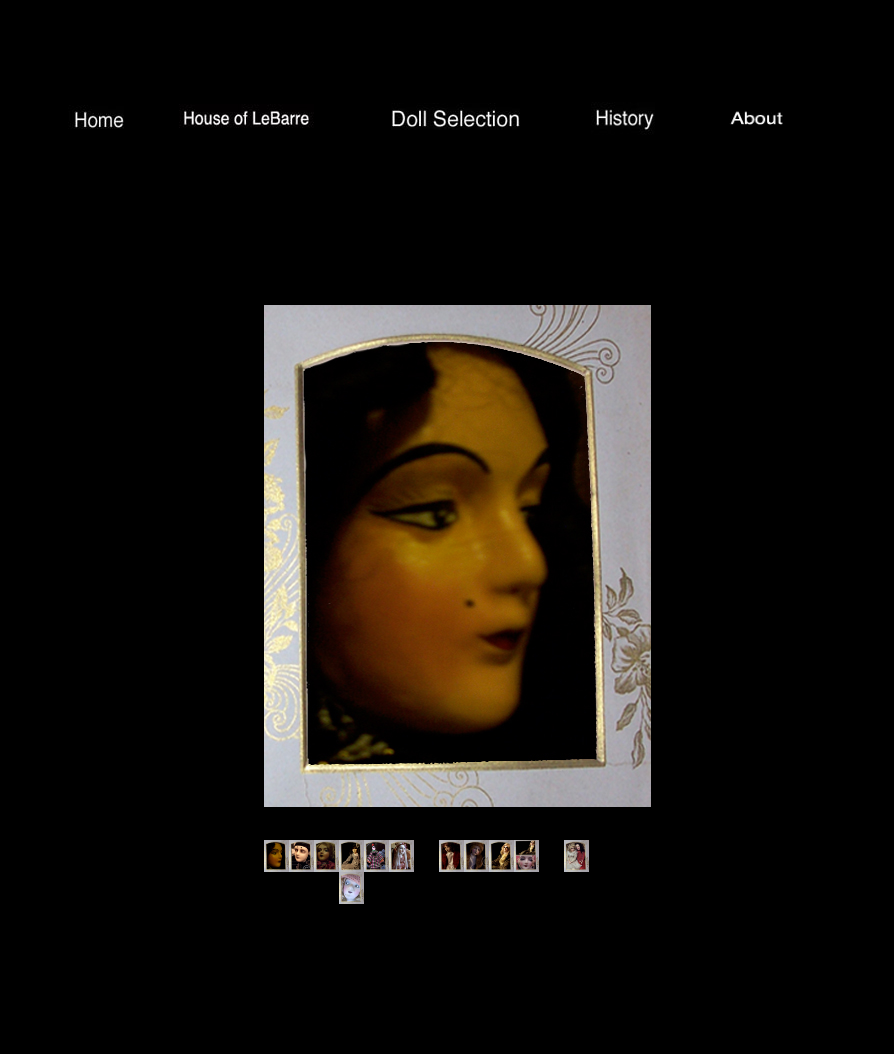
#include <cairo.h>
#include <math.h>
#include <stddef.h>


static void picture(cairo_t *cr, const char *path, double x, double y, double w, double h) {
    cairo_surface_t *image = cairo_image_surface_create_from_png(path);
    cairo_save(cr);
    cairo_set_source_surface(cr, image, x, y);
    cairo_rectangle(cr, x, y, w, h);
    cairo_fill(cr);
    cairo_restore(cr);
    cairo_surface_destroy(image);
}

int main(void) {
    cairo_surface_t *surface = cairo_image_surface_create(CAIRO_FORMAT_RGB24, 894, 1054);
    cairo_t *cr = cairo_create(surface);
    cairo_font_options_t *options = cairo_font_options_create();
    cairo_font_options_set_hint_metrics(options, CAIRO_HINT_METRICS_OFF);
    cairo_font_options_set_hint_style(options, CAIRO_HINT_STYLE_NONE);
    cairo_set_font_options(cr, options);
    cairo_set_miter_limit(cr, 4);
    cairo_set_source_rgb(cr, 0, 0, 0);
    cairo_paint(cr);
    picture(cr, "img1.png", 68, 105, 56, 24);
    picture(cr, "img2.png", 179, 104, 135, 24);
    picture(cr, "img3.png", 391, 103, 129, 27);
    picture(cr, "img4.png", 591, 102, 64, 33);
    picture(cr, "img5.png", 729, 111, 54, 14);
    picture(cr, "img6.png", 264, 305, 387, 502);
    picture(cr, "img7.png", 264, 840, 25, 32);
    picture(cr, "img8.png", 289, 840, 25, 32);
    picture(cr, "img9.png", 314, 840, 25, 32);
    picture(cr, "img10.png", 339, 840, 25, 32);
    picture(cr, "img11.png", 364, 840, 25, 32);
    picture(cr, "img12.png", 389, 840, 25, 32);
    picture(cr, "img13.png", 439, 840, 25, 32);
    picture(cr, "img14.png", 464, 840, 25, 32);
    picture(cr, "img15.png", 489, 840, 25, 32);
    picture(cr, "img16.png", 514, 840, 25, 32);
    picture(cr, "img17.png", 564, 840, 25, 32);
    picture(cr, "img18.png", 339, 872, 25, 32);
    cairo_surface_write_to_png(surface, "page.png");
    cairo_font_options_destroy(options);
    cairo_destroy(cr);
    cairo_surface_destroy(surface);
    return 0;
}
